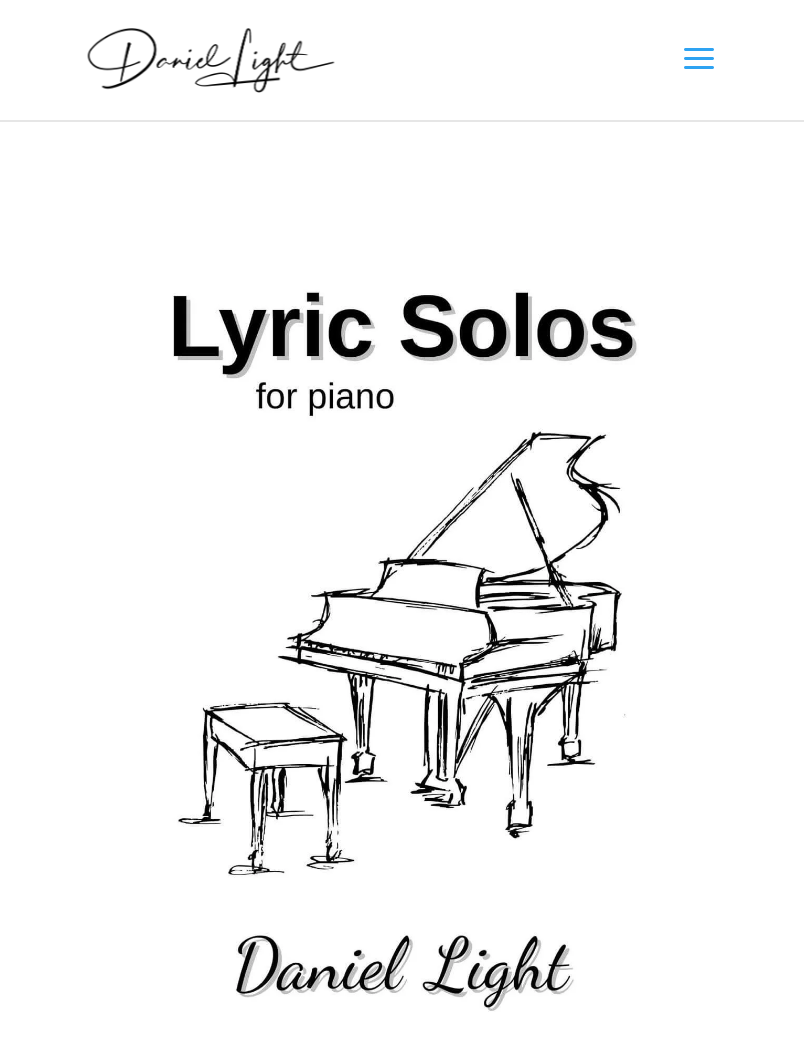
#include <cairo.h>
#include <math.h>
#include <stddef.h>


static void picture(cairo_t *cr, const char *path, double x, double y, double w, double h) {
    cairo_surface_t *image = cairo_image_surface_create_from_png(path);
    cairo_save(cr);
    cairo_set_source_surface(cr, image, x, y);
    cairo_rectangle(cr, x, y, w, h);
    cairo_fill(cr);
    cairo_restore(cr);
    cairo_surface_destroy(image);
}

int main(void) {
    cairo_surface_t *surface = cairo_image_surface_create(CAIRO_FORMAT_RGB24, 804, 1055);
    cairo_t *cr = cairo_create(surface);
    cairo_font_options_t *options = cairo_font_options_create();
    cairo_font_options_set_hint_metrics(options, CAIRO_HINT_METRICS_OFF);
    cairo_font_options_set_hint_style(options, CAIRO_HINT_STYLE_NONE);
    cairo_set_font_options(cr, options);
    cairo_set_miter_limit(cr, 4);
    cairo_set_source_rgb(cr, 1, 1, 1);
    cairo_paint(cr);
    cairo_set_source_rgb(cr, 0.902, 0.902, 0.902);
    cairo_rectangle(cr, 0, 120, 804, 2);
    cairo_fill(cr);
    picture(cr, "img1.png", 87, 28, 248, 65);
    picture(cr, "img2.png", 684, 48, 30, 21);
    picture(cr, "img3.png", 172, 289, 467, 723);
    cairo_surface_write_to_png(surface, "page.png");
    cairo_font_options_destroy(options);
    cairo_destroy(cr);
    cairo_surface_destroy(surface);
    return 0;
}
